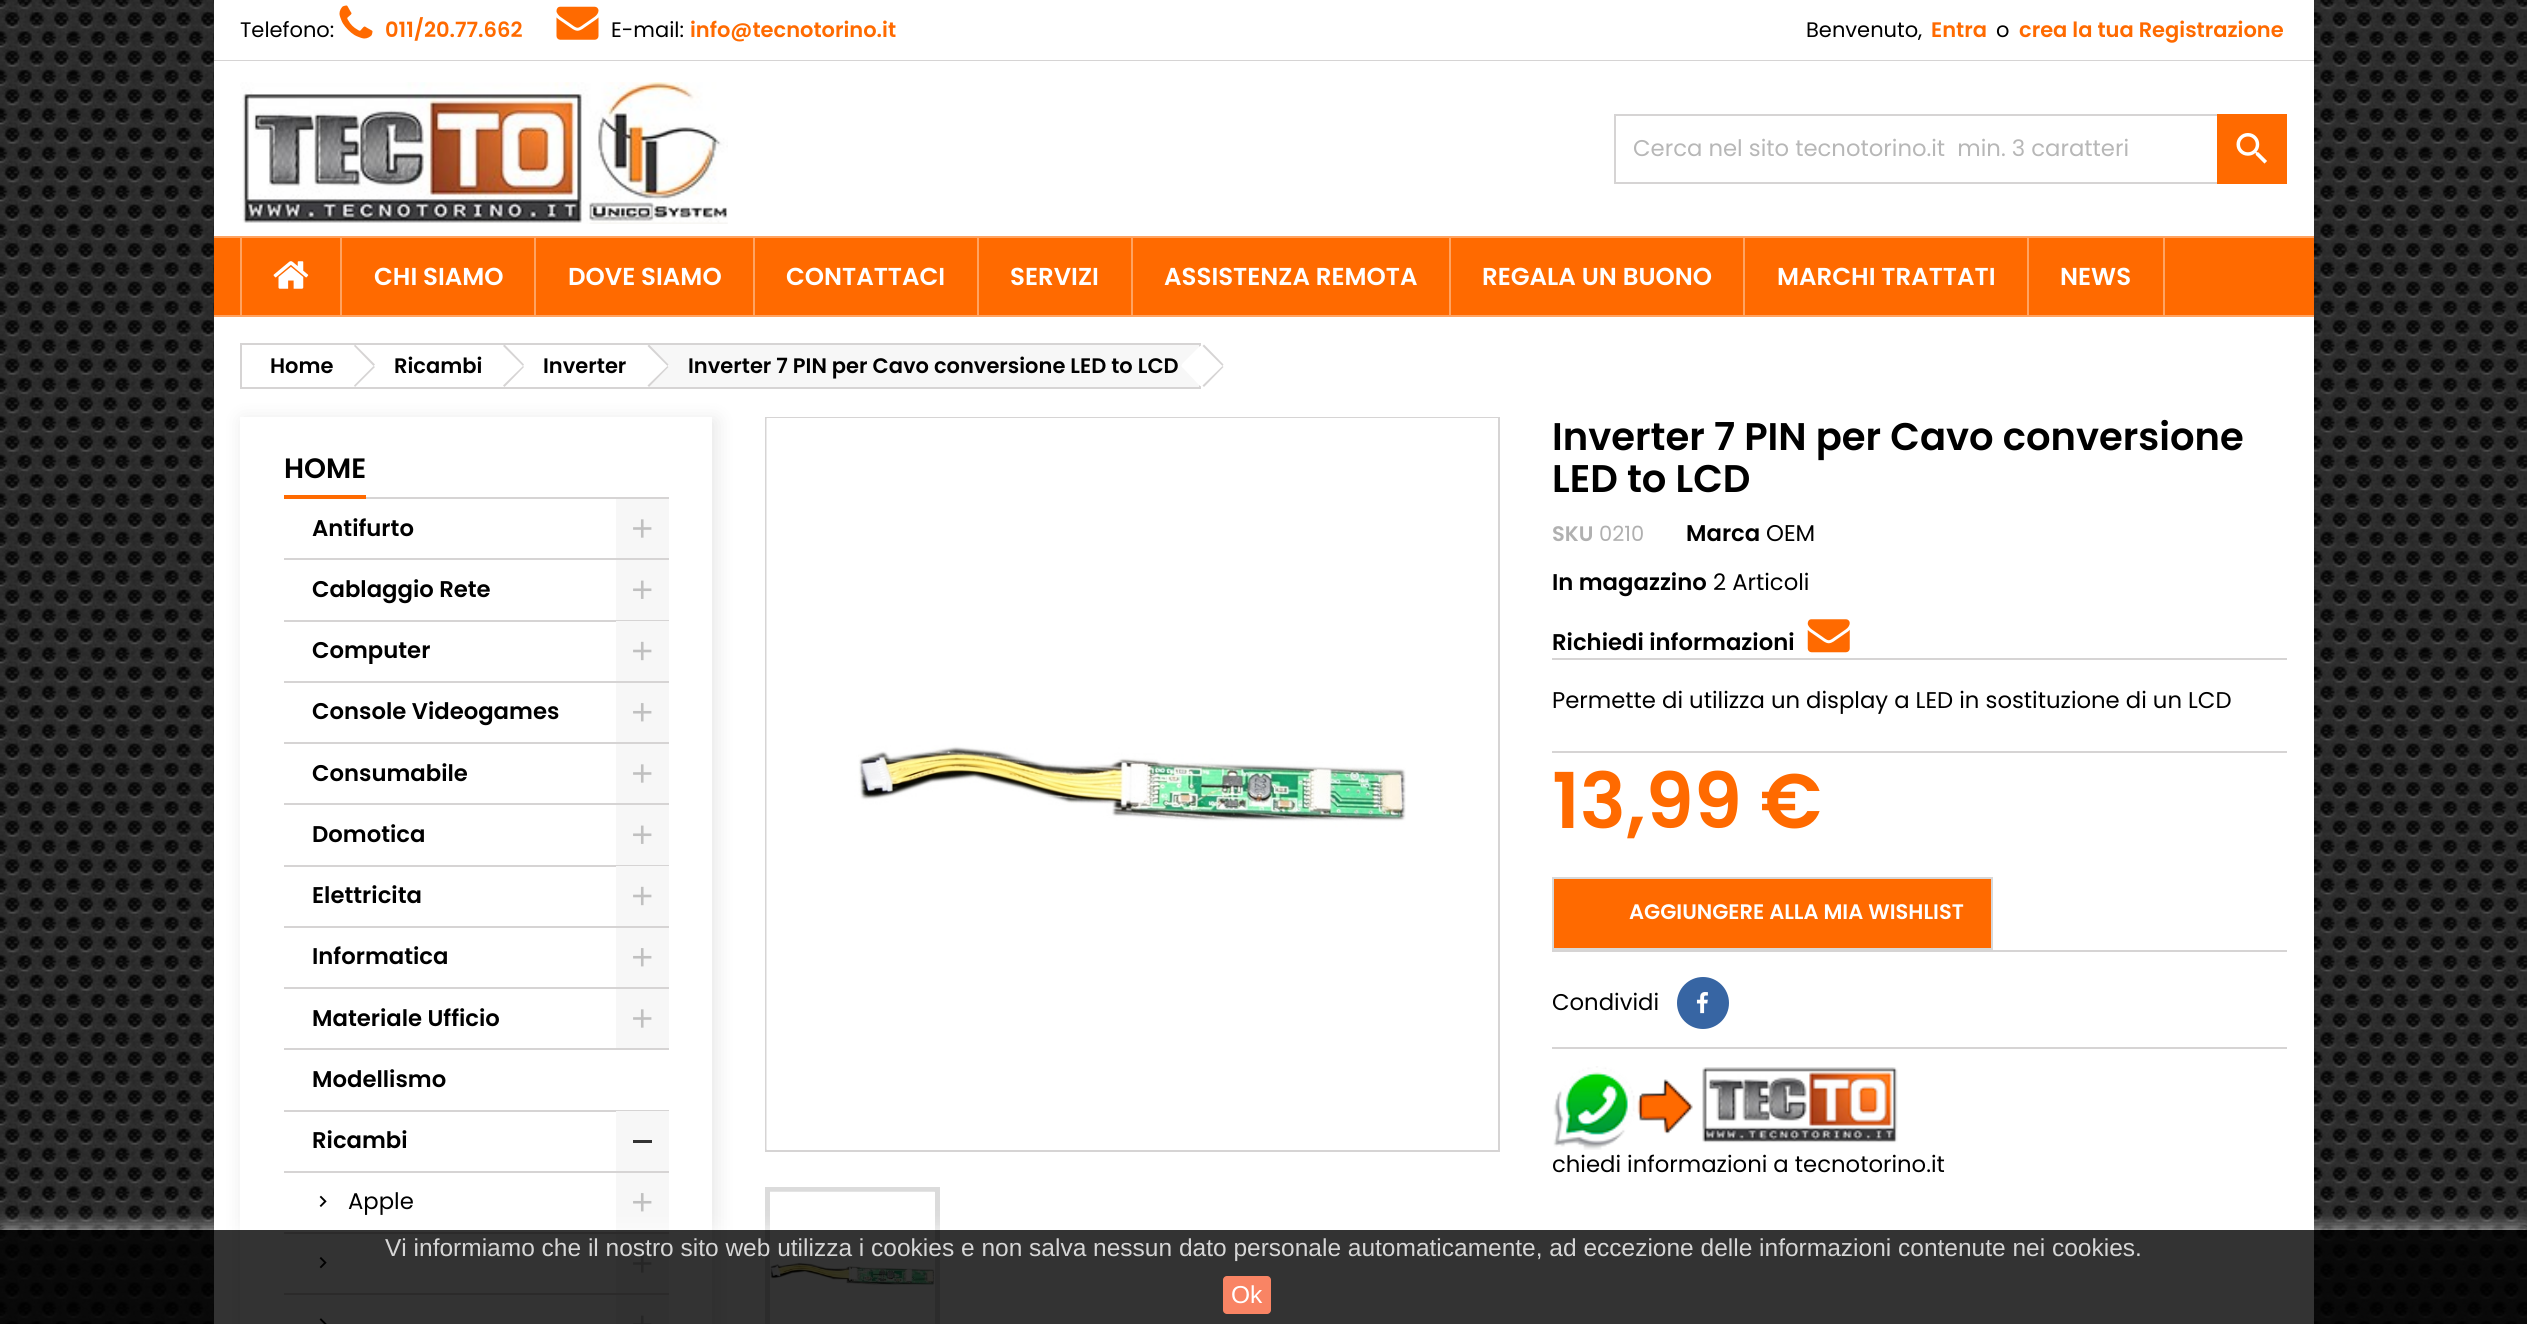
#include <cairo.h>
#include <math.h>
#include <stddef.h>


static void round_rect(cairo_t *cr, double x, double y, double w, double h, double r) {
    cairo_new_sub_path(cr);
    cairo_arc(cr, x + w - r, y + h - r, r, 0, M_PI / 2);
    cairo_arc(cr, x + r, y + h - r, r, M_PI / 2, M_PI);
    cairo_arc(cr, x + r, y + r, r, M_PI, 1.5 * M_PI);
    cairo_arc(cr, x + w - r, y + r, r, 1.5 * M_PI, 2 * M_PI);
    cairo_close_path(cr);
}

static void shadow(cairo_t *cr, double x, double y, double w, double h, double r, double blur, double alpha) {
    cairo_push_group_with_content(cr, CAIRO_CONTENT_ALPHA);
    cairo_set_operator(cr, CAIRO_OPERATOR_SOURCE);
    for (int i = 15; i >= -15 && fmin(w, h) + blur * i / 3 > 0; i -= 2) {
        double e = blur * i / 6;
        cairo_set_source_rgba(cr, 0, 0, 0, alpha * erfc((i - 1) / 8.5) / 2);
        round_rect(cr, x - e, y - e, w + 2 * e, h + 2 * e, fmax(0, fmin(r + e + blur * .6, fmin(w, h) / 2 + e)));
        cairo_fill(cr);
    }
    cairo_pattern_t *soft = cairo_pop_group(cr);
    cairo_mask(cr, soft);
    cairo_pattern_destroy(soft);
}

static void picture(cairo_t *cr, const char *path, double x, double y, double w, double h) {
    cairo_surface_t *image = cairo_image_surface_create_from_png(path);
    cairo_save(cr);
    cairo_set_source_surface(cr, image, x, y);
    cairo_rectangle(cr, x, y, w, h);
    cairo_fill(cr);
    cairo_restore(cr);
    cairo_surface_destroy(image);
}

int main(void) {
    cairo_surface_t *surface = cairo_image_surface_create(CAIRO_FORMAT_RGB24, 2527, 1324);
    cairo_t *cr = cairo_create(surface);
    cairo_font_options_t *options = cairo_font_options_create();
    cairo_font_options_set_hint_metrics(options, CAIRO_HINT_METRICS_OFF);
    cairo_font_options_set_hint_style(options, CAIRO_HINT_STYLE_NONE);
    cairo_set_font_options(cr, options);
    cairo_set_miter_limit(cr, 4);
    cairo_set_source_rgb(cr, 1, 1, 1);
    cairo_paint(cr);
    picture(cr, "img1.png", 0, 0, 2527, 1324);
    cairo_set_source_rgb(cr, 0, 0, 0);
    shadow(cr, 214, 0, 2100, 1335, 0, 3.5, 0.2);
    cairo_set_source_rgb(cr, 1, 1, 1);
    cairo_rectangle(cr, 214, 0, 2100, 1324);
    cairo_fill(cr);
    cairo_set_source_rgb(cr, 0.839, 0.831, 0.831);
    cairo_rectangle(cr, 214, 60, 2100, 1);
    cairo_fill(cr);
    cairo_select_font_face(cr, "Poppins", CAIRO_FONT_SLANT_NORMAL, CAIRO_FONT_WEIGHT_NORMAL);
    cairo_set_font_size(cr, 21);
    cairo_set_source_rgb(cr, 0, 0, 0);
    cairo_move_to(cr, 240, 37);
    cairo_show_text(cr, "Telefono:");
    picture(cr, "img2.png", 339, 5, 34, 34);
    cairo_select_font_face(cr, "Poppins SemiBold", CAIRO_FONT_SLANT_NORMAL, CAIRO_FONT_WEIGHT_NORMAL);
    cairo_set_source_rgb(cr, 1, 0.416, 0);
    cairo_move_to(cr, 385, 37);
    cairo_show_text(cr, "011/20.77.662");
    picture(cr, "img3.png", 556, 6, 43, 34);
    cairo_select_font_face(cr, "Poppins", CAIRO_FONT_SLANT_NORMAL, CAIRO_FONT_WEIGHT_NORMAL);
    cairo_set_source_rgb(cr, 0, 0, 0);
    cairo_move_to(cr, 611, 37);
    cairo_show_text(cr, "E-mail:");
    cairo_select_font_face(cr, "Poppins SemiBold", CAIRO_FONT_SLANT_NORMAL, CAIRO_FONT_WEIGHT_NORMAL);
    cairo_set_source_rgb(cr, 1, 0.416, 0);
    cairo_move_to(cr, 690, 37);
    cairo_show_text(cr, "info@tecnotorino.it");
    cairo_select_font_face(cr, "Poppins", CAIRO_FONT_SLANT_NORMAL, CAIRO_FONT_WEIGHT_NORMAL);
    cairo_set_source_rgb(cr, 0, 0, 0);
    cairo_move_to(cr, 1806, 37);
    cairo_show_text(cr, "Benvenuto,");
    cairo_select_font_face(cr, "Poppins SemiBold", CAIRO_FONT_SLANT_NORMAL, CAIRO_FONT_WEIGHT_NORMAL);
    cairo_set_source_rgb(cr, 1, 0.416, 0);
    cairo_move_to(cr, 1931, 37);
    cairo_show_text(cr, "Entra");
    cairo_select_font_face(cr, "Poppins", CAIRO_FONT_SLANT_NORMAL, CAIRO_FONT_WEIGHT_NORMAL);
    cairo_set_source_rgb(cr, 0, 0, 0);
    cairo_move_to(cr, 1996, 37);
    cairo_show_text(cr, "o");
    cairo_select_font_face(cr, "Poppins SemiBold", CAIRO_FONT_SLANT_NORMAL, CAIRO_FONT_WEIGHT_NORMAL);
    cairo_set_source_rgb(cr, 1, 0.416, 0);
    cairo_move_to(cr, 2019, 37);
    cairo_show_text(cr, "crea la tua Registrazione");
    picture(cr, "img4.png", 240, 82, 488, 142);
    cairo_rectangle(cr, 1615, 115, 671, 68);
    cairo_set_source_rgb(cr, 0.839, 0.831, 0.831);
    cairo_stroke(cr);
    cairo_select_font_face(cr, "Poppins", CAIRO_FONT_SLANT_NORMAL, CAIRO_FONT_WEIGHT_NORMAL);
    cairo_set_font_size(cr, 22.75);
    cairo_set_source_rgb(cr, 0.718, 0.718, 0.718);
    cairo_move_to(cr, 1633, 156);
    cairo_show_text(cr, "Cerca nel sito tecnotorino.it  min. 3 caratteri");
    cairo_set_source_rgb(cr, 1, 0.416, 0);
    cairo_rectangle(cr, 2217, 114, 70, 70);
    cairo_fill(cr);
    picture(cr, "img5.png", 2236, 133, 31, 31);
    cairo_rectangle(cr, 214, 238, 2100, 77);
    cairo_fill(cr);
    cairo_set_source_rgb(cr, 1, 0.639, 0.38);
    cairo_rectangle(cr, 214, 236, 2100, 2);
    cairo_fill(cr);
    cairo_rectangle(cr, 214, 315, 2100, 2);
    cairo_fill(cr);
    cairo_rectangle(cr, 240, 238, 2, 77);
    cairo_fill(cr);
    picture(cr, "img6.png", 273, 261, 36, 28);
    cairo_rectangle(cr, 340, 238, 2, 77);
    cairo_fill(cr);
    cairo_select_font_face(cr, "Poppins SemiBold", CAIRO_FONT_SLANT_NORMAL, CAIRO_FONT_WEIGHT_NORMAL);
    cairo_set_font_size(cr, 24.5);
    cairo_set_source_rgb(cr, 1, 1, 1);
    cairo_move_to(cr, 374, 285);
    cairo_show_text(cr, "CHI SIAMO");
    cairo_set_source_rgb(cr, 1, 0.639, 0.38);
    cairo_rectangle(cr, 534, 238, 2, 77);
    cairo_fill(cr);
    cairo_set_source_rgb(cr, 1, 1, 1);
    cairo_move_to(cr, 568, 285);
    cairo_show_text(cr, "DOVE SIAMO");
    cairo_set_source_rgb(cr, 1, 0.639, 0.38);
    cairo_rectangle(cr, 753, 238, 2, 77);
    cairo_fill(cr);
    cairo_set_source_rgb(cr, 1, 1, 1);
    cairo_move_to(cr, 786, 285);
    cairo_show_text(cr, "CONTATTACI");
    cairo_set_source_rgb(cr, 1, 0.639, 0.38);
    cairo_rectangle(cr, 977, 238, 2, 77);
    cairo_fill(cr);
    cairo_set_source_rgb(cr, 1, 1, 1);
    cairo_move_to(cr, 1010, 285);
    cairo_show_text(cr, "SERVIZI");
    cairo_set_source_rgb(cr, 1, 0.639, 0.38);
    cairo_rectangle(cr, 1131, 238, 2, 77);
    cairo_fill(cr);
    cairo_set_source_rgb(cr, 1, 1, 1);
    cairo_move_to(cr, 1164, 285);
    cairo_show_text(cr, "ASSISTENZA REMOTA");
    cairo_set_source_rgb(cr, 1, 0.639, 0.38);
    cairo_rectangle(cr, 1449, 238, 2, 77);
    cairo_fill(cr);
    cairo_set_source_rgb(cr, 1, 1, 1);
    cairo_move_to(cr, 1482, 285);
    cairo_show_text(cr, "REGALA UN BUONO");
    cairo_set_source_rgb(cr, 1, 0.639, 0.38);
    cairo_rectangle(cr, 1743, 238, 2, 77);
    cairo_fill(cr);
    cairo_set_source_rgb(cr, 1, 1, 1);
    cairo_move_to(cr, 1777, 285);
    cairo_show_text(cr, "MARCHI TRATTATI");
    cairo_set_source_rgb(cr, 1, 0.639, 0.38);
    cairo_rectangle(cr, 2163, 238, 2, 77);
    cairo_fill(cr);
    cairo_rectangle(cr, 2027, 238, 2, 77);
    cairo_fill(cr);
    cairo_set_source_rgb(cr, 1, 1, 1);
    cairo_move_to(cr, 2060, 285);
    cairo_show_text(cr, "NEWS");
    cairo_rectangle(cr, 241, 344, 959, 44);
    cairo_set_source_rgb(cr, 0.839, 0.831, 0.831);
    cairo_stroke(cr);
    cairo_set_font_size(cr, 21);
    cairo_set_source_rgb(cr, 0, 0, 0);
    cairo_move_to(cr, 270, 373);
    cairo_show_text(cr, "Home");
    cairo_set_source_rgb(cr, 0.839, 0.831, 0.831);
    cairo_new_path(cr);
    cairo_move_to(cr, 355, 344.5);
    cairo_line_to(cr, 375, 364.5);
    cairo_line_to(cr, 373.5, 366);
    cairo_line_to(cr, 354, 346);
    cairo_close_path(cr);
    cairo_move_to(cr, 373.5, 366);
    cairo_line_to(cr, 375, 367);
    cairo_line_to(cr, 355, 387);
    cairo_line_to(cr, 354, 385.5);
    cairo_close_path(cr);
    cairo_fill(cr);
    cairo_set_source_rgb(cr, 0, 0, 0);
    cairo_move_to(cr, 394, 373);
    cairo_show_text(cr, "Ricambi");
    cairo_set_source_rgb(cr, 0.839, 0.831, 0.831);
    cairo_new_path(cr);
    cairo_move_to(cr, 504.5, 344.5);
    cairo_line_to(cr, 524, 364.5);
    cairo_line_to(cr, 523, 366);
    cairo_line_to(cr, 503, 346);
    cairo_close_path(cr);
    cairo_move_to(cr, 523, 366);
    cairo_line_to(cr, 524, 367);
    cairo_line_to(cr, 504.5, 387);
    cairo_line_to(cr, 503, 385.5);
    cairo_close_path(cr);
    cairo_fill(cr);
    cairo_set_source_rgb(cr, 0, 0, 0);
    cairo_move_to(cr, 543, 373);
    cairo_show_text(cr, "Inverter");
    cairo_set_source_rgb(cr, 0.965, 0.965, 0.965);
    cairo_rectangle(cr, 649, 345, 550, 42);
    cairo_fill(cr);
    cairo_set_source_rgb(cr, 1, 1, 1);
    cairo_new_path(cr);
    cairo_move_to(cr, 650, 346);
    cairo_line_to(cr, 667, 363);
    cairo_curve_to(cr, 669, 365, 669, 367, 667, 368);
    cairo_line_to(cr, 650, 386);
    cairo_curve_to(cr, 649, 387, 646, 387, 645, 386);
    cairo_line_to(cr, 628, 368);
    cairo_curve_to(cr, 626, 367, 626, 365, 628, 363);
    cairo_line_to(cr, 645, 346);
    cairo_curve_to(cr, 646, 345, 649, 345, 650, 346);
    cairo_close_path(cr);
    cairo_fill(cr);
    cairo_set_source_rgb(cr, 0.839, 0.831, 0.831);
    cairo_new_path(cr);
    cairo_move_to(cr, 649, 344.5);
    cairo_line_to(cr, 668.5, 364.5);
    cairo_line_to(cr, 667.5, 366);
    cairo_line_to(cr, 647.5, 346);
    cairo_close_path(cr);
    cairo_move_to(cr, 667.5, 366);
    cairo_line_to(cr, 668.5, 367);
    cairo_line_to(cr, 649, 387);
    cairo_line_to(cr, 647.5, 385.5);
    cairo_close_path(cr);
    cairo_fill(cr);
    cairo_set_source_rgb(cr, 0, 0, 0);
    cairo_move_to(cr, 688, 373);
    cairo_show_text(cr, "Inverter 7 PIN per Cavo conversione LED to LCD");
    cairo_set_source_rgb(cr, 1, 1, 1);
    cairo_new_path(cr);
    cairo_move_to(cr, 1205, 346);
    cairo_line_to(cr, 1222, 363);
    cairo_curve_to(cr, 1224, 365, 1224, 367, 1222, 368);
    cairo_line_to(cr, 1205, 386);
    cairo_curve_to(cr, 1204, 387, 1202, 387, 1200, 386);
    cairo_line_to(cr, 1183, 368);
    cairo_curve_to(cr, 1181, 367, 1181, 365, 1183, 363);
    cairo_line_to(cr, 1200, 346);
    cairo_curve_to(cr, 1202, 345, 1204, 345, 1205, 346);
    cairo_close_path(cr);
    cairo_fill(cr);
    cairo_set_source_rgb(cr, 0.839, 0.831, 0.831);
    cairo_new_path(cr);
    cairo_move_to(cr, 1204, 344.5);
    cairo_line_to(cr, 1223.5, 364.5);
    cairo_line_to(cr, 1222.5, 366);
    cairo_line_to(cr, 1202.5, 346);
    cairo_close_path(cr);
    cairo_move_to(cr, 1222.5, 366);
    cairo_line_to(cr, 1223.5, 367);
    cairo_line_to(cr, 1204, 387);
    cairo_line_to(cr, 1202.5, 385.5);
    cairo_close_path(cr);
    cairo_fill(cr);
    cairo_save(cr);
    cairo_set_fill_rule(cr, CAIRO_FILL_RULE_EVEN_ODD);
    cairo_new_path(cr);
    cairo_move_to(cr, 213, 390);
    cairo_line_to(cr, 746, 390);
    cairo_line_to(cr, 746, 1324);
    cairo_line_to(cr, 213, 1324);
    cairo_close_path(cr);
    cairo_move_to(cr, 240, 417);
    cairo_line_to(cr, 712, 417);
    cairo_line_to(cr, 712, 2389);
    cairo_line_to(cr, 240, 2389);
    cairo_close_path(cr);
    cairo_clip(cr);
    cairo_set_source_rgb(cr, 0, 0, 0);
    shadow(cr, 243, 420, 473, 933, 0, 9.5, 0.1);
    cairo_restore(cr);
    cairo_rectangle(cr, 366, 497, 303, 2);
    cairo_fill(cr);
    cairo_set_source_rgb(cr, 1, 0.416, 0);
    cairo_rectangle(cr, 284, 495, 82, 4);
    cairo_fill(cr);
    cairo_set_font_size(cr, 28);
    cairo_set_source_rgb(cr, 0, 0, 0);
    cairo_move_to(cr, 284, 478);
    cairo_show_text(cr, "HOME");
    cairo_set_source_rgb(cr, 0.839, 0.831, 0.831);
    cairo_rectangle(cr, 284, 558, 385, 2);
    cairo_fill(cr);
    cairo_set_font_size(cr, 22.75);
    cairo_set_source_rgb(cr, 0, 0, 0);
    cairo_move_to(cr, 312, 536);
    cairo_show_text(cr, "Antifurto");
    cairo_set_source_rgb(cr, 0.965, 0.965, 0.965);
    cairo_rectangle(cr, 616, 499, 53, 59);
    cairo_fill(cr);
    picture(cr, "img7.png", 633, 519, 19, 19);
    cairo_set_source_rgb(cr, 0.839, 0.831, 0.831);
    cairo_rectangle(cr, 284, 620, 385, 2);
    cairo_fill(cr);
    cairo_set_source_rgb(cr, 0, 0, 0);
    cairo_move_to(cr, 312, 597);
    cairo_show_text(cr, "Cablaggio Rete");
    cairo_set_source_rgb(cr, 0.965, 0.965, 0.965);
    cairo_rectangle(cr, 616, 560, 53, 60);
    cairo_fill(cr);
    picture(cr, "img8.png", 633, 580, 19, 19);
    cairo_set_source_rgb(cr, 0.839, 0.831, 0.831);
    cairo_rectangle(cr, 284, 681, 385, 2);
    cairo_fill(cr);
    cairo_set_source_rgb(cr, 0, 0, 0);
    cairo_move_to(cr, 312, 658);
    cairo_show_text(cr, "Computer");
    cairo_set_source_rgb(cr, 0.965, 0.965, 0.965);
    cairo_rectangle(cr, 616, 621, 53, 60);
    cairo_fill(cr);
    picture(cr, "img9.png", 633, 641, 19, 20);
    cairo_set_source_rgb(cr, 0.839, 0.831, 0.831);
    cairo_rectangle(cr, 284, 742, 385, 2);
    cairo_fill(cr);
    cairo_set_source_rgb(cr, 0, 0, 0);
    cairo_move_to(cr, 312, 719);
    cairo_show_text(cr, "Console Videogames");
    cairo_set_source_rgb(cr, 0.965, 0.965, 0.965);
    cairo_rectangle(cr, 616, 683, 53, 59);
    cairo_fill(cr);
    picture(cr, "img10.png", 633, 703, 19, 19);
    cairo_set_source_rgb(cr, 0.839, 0.831, 0.831);
    cairo_rectangle(cr, 284, 803, 385, 2);
    cairo_fill(cr);
    cairo_set_source_rgb(cr, 0, 0, 0);
    cairo_move_to(cr, 312, 781);
    cairo_show_text(cr, "Consumabile");
    cairo_set_source_rgb(cr, 0.965, 0.965, 0.965);
    cairo_rectangle(cr, 616, 744, 53, 59);
    cairo_fill(cr);
    picture(cr, "img7.png", 633, 764, 19, 19);
    cairo_set_source_rgb(cr, 0.839, 0.831, 0.831);
    cairo_rectangle(cr, 284, 865, 385, 2);
    cairo_fill(cr);
    cairo_set_source_rgb(cr, 0, 0, 0);
    cairo_move_to(cr, 312, 842);
    cairo_show_text(cr, "Domotica");
    cairo_set_source_rgb(cr, 0.965, 0.965, 0.965);
    cairo_rectangle(cr, 616, 805, 53, 60);
    cairo_fill(cr);
    picture(cr, "img8.png", 633, 825, 19, 19);
    cairo_set_source_rgb(cr, 0.839, 0.831, 0.831);
    cairo_rectangle(cr, 284, 926, 385, 2);
    cairo_fill(cr);
    cairo_set_source_rgb(cr, 0, 0, 0);
    cairo_move_to(cr, 312, 903);
    cairo_show_text(cr, "Elettricita");
    cairo_set_source_rgb(cr, 0.965, 0.965, 0.965);
    cairo_rectangle(cr, 616, 866, 53, 60);
    cairo_fill(cr);
    picture(cr, "img9.png", 633, 886, 19, 20);
    cairo_set_source_rgb(cr, 0.839, 0.831, 0.831);
    cairo_rectangle(cr, 284, 987, 385, 2);
    cairo_fill(cr);
    cairo_set_source_rgb(cr, 0, 0, 0);
    cairo_move_to(cr, 312, 964);
    cairo_show_text(cr, "Informatica");
    cairo_set_source_rgb(cr, 0.965, 0.965, 0.965);
    cairo_rectangle(cr, 616, 928, 53, 59);
    cairo_fill(cr);
    picture(cr, "img10.png", 633, 948, 19, 19);
    cairo_set_source_rgb(cr, 0.839, 0.831, 0.831);
    cairo_rectangle(cr, 284, 1048, 385, 2);
    cairo_fill(cr);
    cairo_set_source_rgb(cr, 0, 0, 0);
    cairo_move_to(cr, 312, 1026);
    cairo_show_text(cr, "Materiale Ufficio");
    cairo_set_source_rgb(cr, 0.965, 0.965, 0.965);
    cairo_rectangle(cr, 616, 989, 53, 59);
    cairo_fill(cr);
    picture(cr, "img7.png", 633, 1009, 19, 19);
    cairo_set_source_rgb(cr, 0.839, 0.831, 0.831);
    cairo_rectangle(cr, 284, 1110, 385, 2);
    cairo_fill(cr);
    cairo_set_source_rgb(cr, 0, 0, 0);
    cairo_move_to(cr, 312, 1087);
    cairo_show_text(cr, "Modellismo");
    cairo_set_source_rgb(cr, 0.839, 0.831, 0.831);
    cairo_rectangle(cr, 284, 1171, 385, 2);
    cairo_fill(cr);
    cairo_set_source_rgb(cr, 0, 0, 0);
    cairo_move_to(cr, 312, 1148);
    cairo_show_text(cr, "Ricambi");
    cairo_set_source_rgb(cr, 0.965, 0.965, 0.965);
    cairo_rectangle(cr, 616, 1111, 53, 60);
    cairo_fill(cr);
    cairo_set_source_rgb(cr, 0.2, 0.2, 0.2);
    cairo_rectangle(cr, 633, 1140, 19, 3);
    cairo_fill(cr);
    cairo_set_source_rgb(cr, 0.839, 0.831, 0.831);
    cairo_rectangle(cr, 284, 1232, 385, 2);
    cairo_fill(cr);
    picture(cr, "img11.png", 319, 1195, 8, 12);
    cairo_select_font_face(cr, "Poppins", CAIRO_FONT_SLANT_NORMAL, CAIRO_FONT_WEIGHT_NORMAL);
    cairo_set_source_rgb(cr, 0, 0, 0);
    cairo_move_to(cr, 348, 1209);
    cairo_show_text(cr, "Apple");
    cairo_set_source_rgb(cr, 0.965, 0.965, 0.965);
    cairo_rectangle(cr, 616, 1173, 53, 59);
    cairo_fill(cr);
    picture(cr, "img10.png", 633, 1193, 19, 19);
    cairo_rectangle(cr, 616, 1234, 53, 59);
    cairo_fill(cr);
    picture(cr, "img7.png", 633, 1254, 19, 19);
    cairo_set_source_rgb(cr, 0.839, 0.831, 0.831);
    cairo_rectangle(cr, 284, 1293, 385, 2);
    cairo_fill(cr);
    picture(cr, "img12.png", 319, 1257, 8, 12);
    picture(cr, "img13.png", 319, 1318, 8, 6);
    cairo_set_source_rgb(cr, 0.965, 0.965, 0.965);
    cairo_rectangle(cr, 616, 1295, 53, 29);
    cairo_fill(cr);
    picture(cr, "img14.png", 633, 1315, 19, 9);
    cairo_rectangle(cr, 766, 418, 733, 733);
    cairo_set_source_rgb(cr, 0.839, 0.831, 0.831);
    cairo_stroke(cr);
    cairo_set_source_rgb(cr, 1, 1, 1);
    cairo_rectangle(cr, 767, 418, 731, 1);
    cairo_fill(cr);
    picture(cr, "img15.png", 766, 418, 640, 732);
    cairo_rectangle(cr, 767.5, 1189.5, 170, 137);
    cairo_set_source_rgb(cr, 0.859, 0.859, 0.859);
    cairo_set_line_width(cr, 5);
    cairo_stroke(cr);
    picture(cr, "img16.png", 770, 1191, 165, 94);
    cairo_select_font_face(cr, "Poppins SemiBold", CAIRO_FONT_SLANT_NORMAL, CAIRO_FONT_WEIGHT_NORMAL);
    cairo_set_font_size(cr, 38.5);
    cairo_set_source_rgb(cr, 0, 0, 0);
    cairo_move_to(cr, 1552, 450);
    cairo_show_text(cr, "Inverter 7 PIN per Cavo conversione");
    cairo_move_to(cr, 1552, 492);
    cairo_show_text(cr, "LED to LCD");
    cairo_set_font_size(cr, 21);
    cairo_set_source_rgb(cr, 0.69, 0.69, 0.69);
    cairo_move_to(cr, 1552, 541);
    cairo_show_text(cr, "SKU");
    cairo_select_font_face(cr, "Poppins", CAIRO_FONT_SLANT_NORMAL, CAIRO_FONT_WEIGHT_NORMAL);
    cairo_move_to(cr, 1599, 541);
    cairo_show_text(cr, "0210");
    cairo_select_font_face(cr, "Poppins SemiBold", CAIRO_FONT_SLANT_NORMAL, CAIRO_FONT_WEIGHT_NORMAL);
    cairo_set_font_size(cr, 22.75);
    cairo_set_source_rgb(cr, 0, 0, 0);
    cairo_move_to(cr, 1686, 541);
    cairo_show_text(cr, "Marca");
    cairo_select_font_face(cr, "Poppins", CAIRO_FONT_SLANT_NORMAL, CAIRO_FONT_WEIGHT_NORMAL);
    cairo_move_to(cr, 1766, 541);
    cairo_show_text(cr, "OEM");
    cairo_select_font_face(cr, "Poppins SemiBold", CAIRO_FONT_SLANT_NORMAL, CAIRO_FONT_WEIGHT_NORMAL);
    cairo_move_to(cr, 1552, 590);
    cairo_show_text(cr, "In magazzino");
    cairo_select_font_face(cr, "Poppins", CAIRO_FONT_SLANT_NORMAL, CAIRO_FONT_WEIGHT_NORMAL);
    cairo_move_to(cr, 1713, 590);
    cairo_show_text(cr, "2 Articoli");
    cairo_select_font_face(cr, "Poppins SemiBold", CAIRO_FONT_SLANT_NORMAL, CAIRO_FONT_WEIGHT_NORMAL);
    cairo_move_to(cr, 1552, 650);
    cairo_show_text(cr, "Richiedi informazioni");
    picture(cr, "img17.png", 1807, 619, 43, 34);
    cairo_set_source_rgb(cr, 0.839, 0.831, 0.831);
    cairo_rectangle(cr, 1552, 658, 735, 2);
    cairo_fill(cr);
    cairo_select_font_face(cr, "Poppins", CAIRO_FONT_SLANT_NORMAL, CAIRO_FONT_WEIGHT_NORMAL);
    cairo_set_source_rgb(cr, 0, 0, 0);
    cairo_move_to(cr, 1552, 708);
    cairo_show_text(cr, "Permette di utilizza un display a LED in sostituzione di un LCD");
    cairo_set_source_rgb(cr, 0.839, 0.831, 0.831);
    cairo_rectangle(cr, 1552, 751, 735, 2);
    cairo_fill(cr);
    cairo_select_font_face(cr, "Poppins SemiBold", CAIRO_FONT_SLANT_NORMAL, CAIRO_FONT_WEIGHT_NORMAL);
    cairo_set_font_size(cr, 77);
    cairo_set_source_rgb(cr, 1, 0.416, 0);
    cairo_move_to(cr, 1552, 828);
    cairo_show_text(cr, "13,99 €");
    cairo_rectangle(cr, 1553, 878, 439, 71);
    cairo_fill_preserve(cr);
    cairo_set_source_rgb(cr, 0.847, 0.847, 0.847);
    cairo_set_line_width(cr, 2);
    cairo_stroke(cr);
    cairo_set_font_size(cr, 21);
    cairo_set_source_rgb(cr, 1, 1, 1);
    cairo_move_to(cr, 1629, 919);
    cairo_show_text(cr, "AGGIUNGERE ALLA MIA WISHLIST");
    cairo_set_source_rgb(cr, 0.839, 0.831, 0.831);
    cairo_rectangle(cr, 1552, 950, 735, 2);
    cairo_fill(cr);
    cairo_rectangle(cr, 1552, 1047, 735, 2);
    cairo_fill(cr);
    cairo_select_font_face(cr, "Poppins", CAIRO_FONT_SLANT_NORMAL, CAIRO_FONT_WEIGHT_NORMAL);
    cairo_set_font_size(cr, 22.75);
    cairo_set_source_rgb(cr, 0, 0, 0);
    cairo_move_to(cr, 1552, 1010);
    cairo_show_text(cr, "Condividi");
    cairo_set_source_rgb(cr, 0.216, 0.396, 0.639);
    cairo_new_path(cr);
    cairo_arc(cr, 1703, 1003, 26, 0, 2 * M_PI);
    cairo_fill(cr);
    picture(cr, "img18.png", 1696, 992, 12, 22);
    picture(cr, "img19.png", 1553, 1066, 345, 84);
    cairo_set_source_rgb(cr, 0, 0, 0);
    cairo_move_to(cr, 1552, 1172);
    cairo_show_text(cr, "chiedi informazioni a tecnotorino.it");
    cairo_save(cr);
    cairo_set_fill_rule(cr, CAIRO_FILL_RULE_EVEN_ODD);
    cairo_new_path(cr);
    cairo_move_to(cr, 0, 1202);
    cairo_line_to(cr, 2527, 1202);
    cairo_line_to(cr, 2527, 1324);
    cairo_line_to(cr, 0, 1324);
    cairo_close_path(cr);
    cairo_move_to(cr, 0, 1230);
    cairo_line_to(cr, 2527, 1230);
    cairo_line_to(cr, 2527, 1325);
    cairo_line_to(cr, 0, 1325);
    cairo_close_path(cr);
    cairo_clip(cr);
    cairo_set_source_rgb(cr, 1, 1, 1);
    shadow(cr, 0, 1230, 2527, 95, 0, 9, 0.8);
    cairo_restore(cr);
    cairo_set_source_rgba(cr, 0, 0, 0, 0.8);
    cairo_rectangle(cr, 0, 1230, 2527, 94);
    cairo_fill(cr);
    cairo_select_font_face(cr, "Liberation Sans", CAIRO_FONT_SLANT_NORMAL, CAIRO_FONT_WEIGHT_NORMAL);
    cairo_set_font_size(cr, 24.5);
    cairo_set_source_rgb(cr, 0.839, 0.839, 0.839);
    cairo_move_to(cr, 385, 1256);
    cairo_show_text(cr, "Vi informiamo che il nostro sito web utilizza i cookies e non salva nessun dato personale automaticamente, ad eccezione delle informazioni contenute nei cookies.");
    cairo_set_source_rgb(cr, 0.976, 0.518, 0.392);
    round_rect(cr, 1223, 1276, 48, 38, 4);
    cairo_fill(cr);
    cairo_set_source_rgb(cr, 1, 1, 1);
    cairo_move_to(cr, 1231, 1303);
    cairo_show_text(cr, "Ok");
    cairo_surface_write_to_png(surface, "page.png");
    cairo_font_options_destroy(options);
    cairo_destroy(cr);
    cairo_surface_destroy(surface);
    return 0;
}
